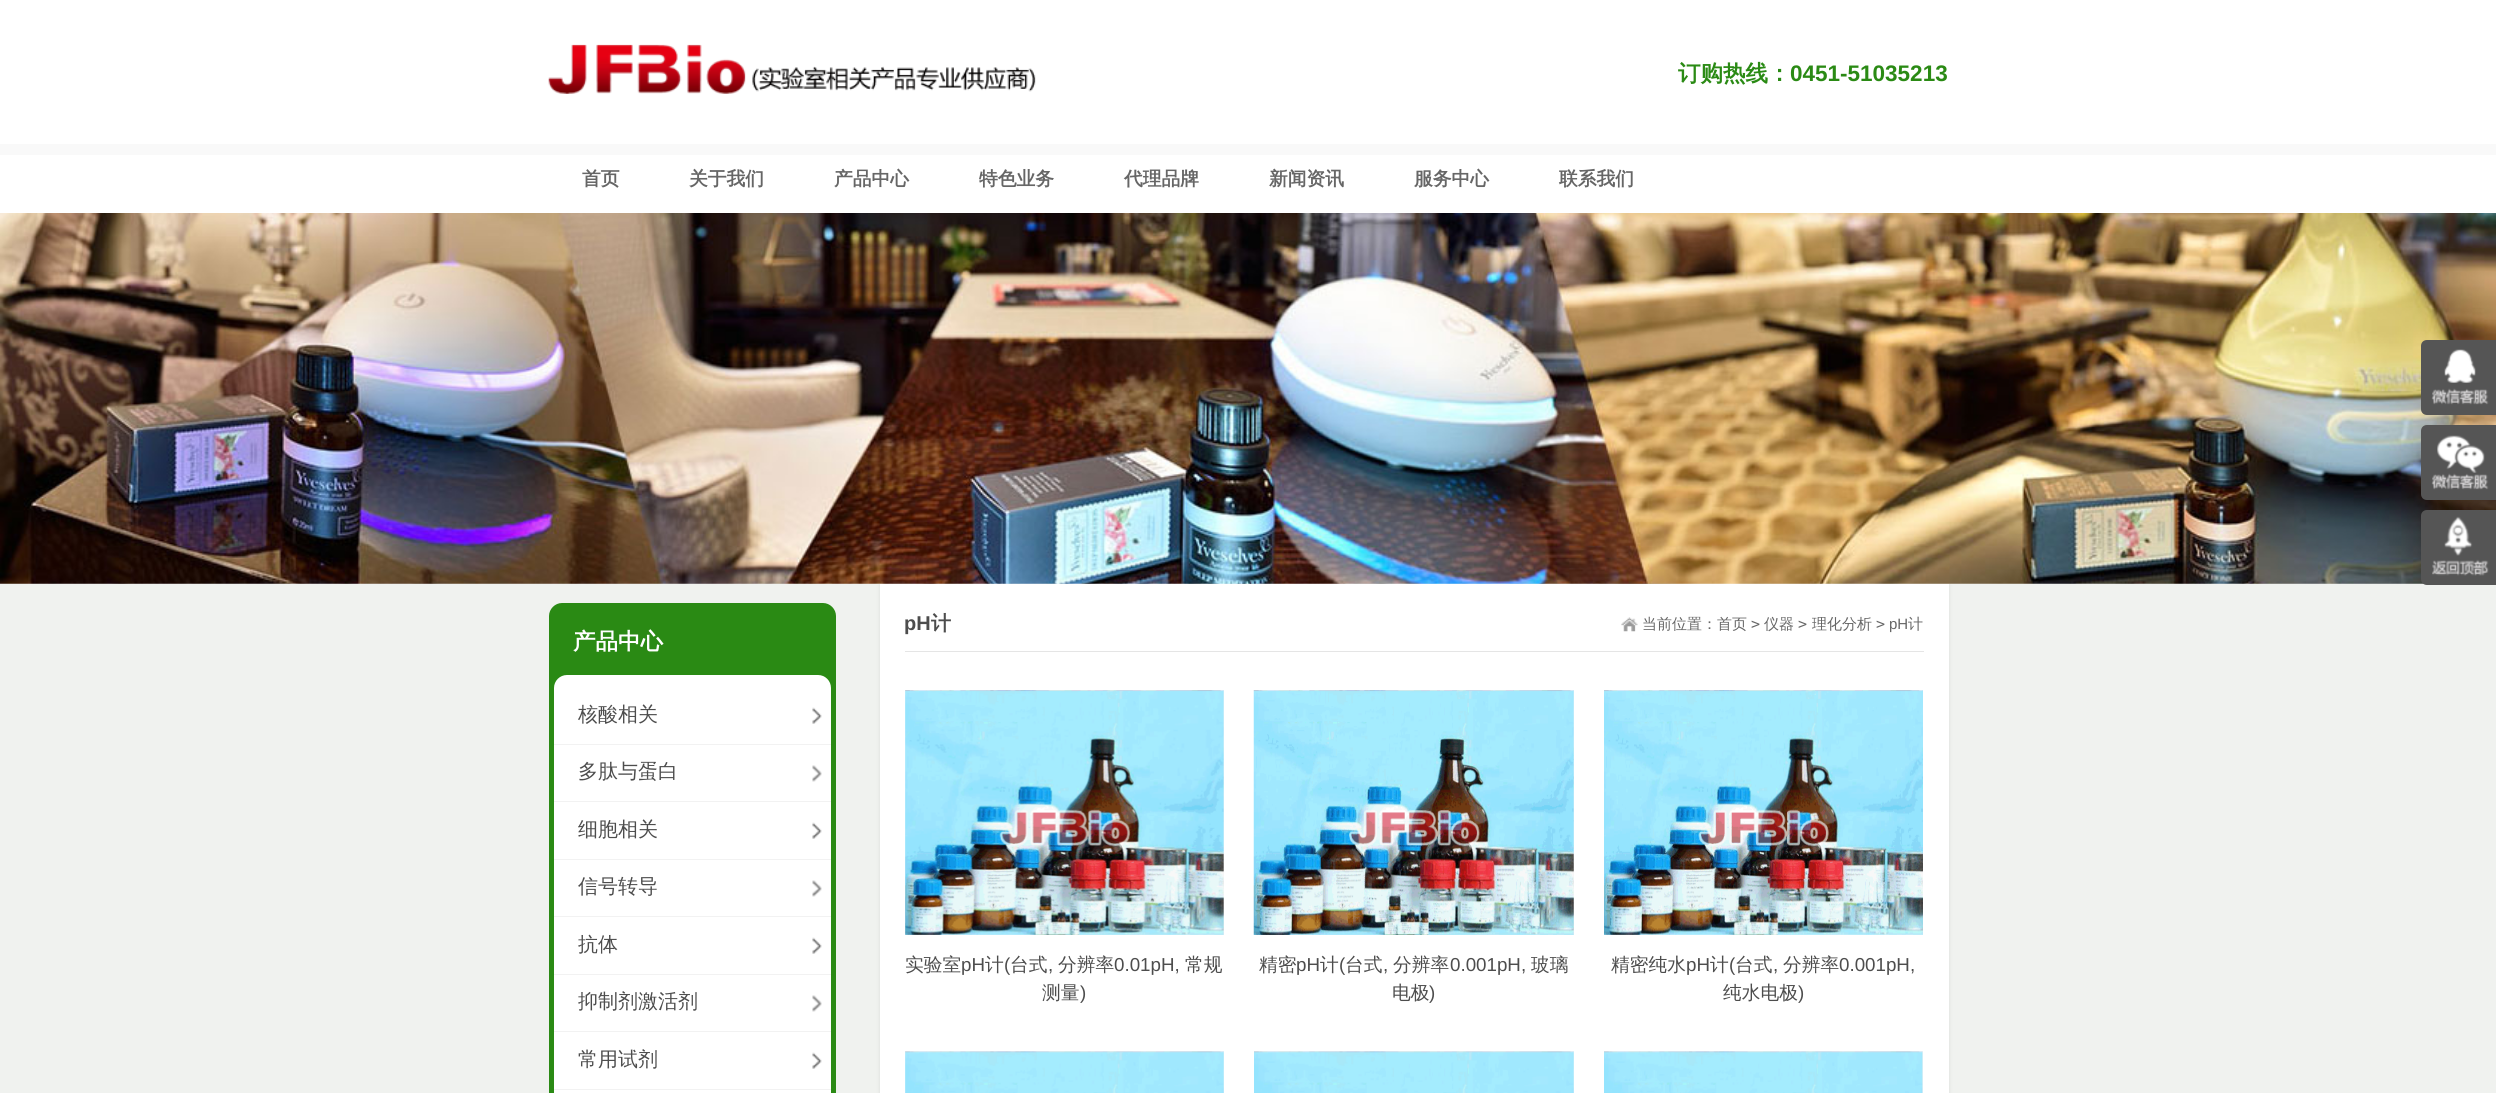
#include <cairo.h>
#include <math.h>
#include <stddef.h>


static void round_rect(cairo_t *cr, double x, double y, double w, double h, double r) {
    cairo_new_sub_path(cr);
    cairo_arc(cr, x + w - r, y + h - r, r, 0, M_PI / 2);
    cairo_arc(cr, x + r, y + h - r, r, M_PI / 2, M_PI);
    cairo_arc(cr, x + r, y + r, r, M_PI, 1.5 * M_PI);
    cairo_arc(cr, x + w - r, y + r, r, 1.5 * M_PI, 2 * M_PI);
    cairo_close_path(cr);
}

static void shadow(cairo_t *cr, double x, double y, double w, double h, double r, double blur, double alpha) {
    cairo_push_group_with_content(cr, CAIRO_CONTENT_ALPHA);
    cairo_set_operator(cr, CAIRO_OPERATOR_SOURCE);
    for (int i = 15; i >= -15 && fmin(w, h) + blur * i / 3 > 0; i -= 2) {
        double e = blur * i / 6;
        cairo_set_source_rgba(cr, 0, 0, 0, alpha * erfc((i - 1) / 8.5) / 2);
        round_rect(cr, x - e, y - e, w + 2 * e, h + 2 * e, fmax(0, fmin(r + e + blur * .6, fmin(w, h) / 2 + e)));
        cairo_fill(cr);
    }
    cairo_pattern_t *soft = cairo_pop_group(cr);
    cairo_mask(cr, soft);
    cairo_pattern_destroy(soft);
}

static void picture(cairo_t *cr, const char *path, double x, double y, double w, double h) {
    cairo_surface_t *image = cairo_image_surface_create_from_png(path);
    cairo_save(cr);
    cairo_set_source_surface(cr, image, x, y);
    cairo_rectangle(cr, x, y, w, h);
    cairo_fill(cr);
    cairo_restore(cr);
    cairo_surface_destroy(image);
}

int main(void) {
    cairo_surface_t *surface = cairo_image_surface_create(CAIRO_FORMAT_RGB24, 2496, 1093);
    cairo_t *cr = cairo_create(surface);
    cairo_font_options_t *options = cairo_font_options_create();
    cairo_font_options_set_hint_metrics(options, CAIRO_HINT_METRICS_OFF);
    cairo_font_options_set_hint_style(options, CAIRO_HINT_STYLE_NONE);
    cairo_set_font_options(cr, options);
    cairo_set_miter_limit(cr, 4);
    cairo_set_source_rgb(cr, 1, 1, 1);
    cairo_paint(cr);
    picture(cr, "img1.png", 0, 583, 2424, 1);
    picture(cr, "img2.png", 548, 44, 488, 50);
    cairo_select_font_face(cr, "WenQuanYi Zen Hei", CAIRO_FONT_SLANT_NORMAL, CAIRO_FONT_WEIGHT_BOLD);
    cairo_set_font_size(cr, 22.5);
    cairo_set_source_rgb(cr, 0.165, 0.541, 0.082);
    cairo_move_to(cr, 1678, 81);
    cairo_show_text(cr, "订购热线：");
    cairo_select_font_face(cr, "Liberation Sans", CAIRO_FONT_SLANT_NORMAL, CAIRO_FONT_WEIGHT_BOLD);
    cairo_move_to(cr, 1790, 81);
    cairo_show_text(cr, "0451-51035213");
    cairo_set_source_rgb(cr, 0.976, 0.976, 0.976);
    cairo_rectangle(cr, 0, 144, 2496, 11);
    cairo_fill(cr);
    cairo_select_font_face(cr, "WenQuanYi Zen Hei", CAIRO_FONT_SLANT_NORMAL, CAIRO_FONT_WEIGHT_BOLD);
    cairo_set_font_size(cr, 18.75);
    cairo_set_source_rgb(cr, 0.4, 0.4, 0.4);
    cairo_move_to(cr, 582, 185);
    cairo_show_text(cr, "首页");
    cairo_move_to(cr, 689, 185);
    cairo_show_text(cr, "关于我们");
    cairo_move_to(cr, 834, 185);
    cairo_show_text(cr, "产品中心");
    cairo_move_to(cr, 979, 185);
    cairo_show_text(cr, "特色业务");
    cairo_move_to(cr, 1124, 185);
    cairo_show_text(cr, "代理品牌");
    cairo_move_to(cr, 1269, 185);
    cairo_show_text(cr, "新闻资讯");
    cairo_move_to(cr, 1414, 185);
    cairo_show_text(cr, "服务中心");
    cairo_move_to(cr, 1559, 185);
    cairo_show_text(cr, "联系我们");
    cairo_set_source_rgb(cr, 0.941, 0.949, 0.937);
    cairo_rectangle(cr, 0, 584, 2496, 509);
    cairo_fill(cr);
    cairo_set_source_rgb(cr, 0, 0, 0);
    shadow(cr, 880, 585, 1069, 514, 0, 2, 0.1);
    picture(cr, "img3.png", 0, 213, 2496, 371);
    cairo_set_source_rgb(cr, 0.165, 0.541, 0.082);
    cairo_new_path(cr);
    cairo_move_to(cr, 562, 603);
    cairo_line_to(cr, 823, 603);
    cairo_curve_to(cr, 830, 603, 836, 609, 836, 616);
    cairo_line_to(cr, 836, 675);
    cairo_line_to(cr, 549, 675);
    cairo_line_to(cr, 549, 616);
    cairo_curve_to(cr, 549, 609, 555, 603, 562, 603);
    cairo_close_path(cr);
    cairo_fill(cr);
    cairo_set_font_size(cr, 22.5);
    cairo_set_source_rgb(cr, 1, 1, 1);
    cairo_move_to(cr, 573, 649);
    cairo_show_text(cr, "产品中心");
    cairo_set_source_rgb(cr, 0.165, 0.541, 0.082);
    cairo_rectangle(cr, 549, 675, 287, 418);
    cairo_fill(cr);
    cairo_set_source_rgb(cr, 1, 1, 1);
    round_rect(cr, 554, 675, 277, 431, 13);
    cairo_fill(cr);
    picture(cr, "img4.png", 812, 707, 10, 17);
    cairo_set_source_rgb(cr, 0.949, 0.949, 0.949);
    cairo_rectangle(cr, 554, 744, 277, 1);
    cairo_fill(cr);
    cairo_select_font_face(cr, "WenQuanYi Zen Hei Medium", CAIRO_FONT_SLANT_NORMAL, CAIRO_FONT_WEIGHT_NORMAL);
    cairo_set_font_size(cr, 20);
    cairo_set_source_rgb(cr, 0.302, 0.302, 0.302);
    cairo_move_to(cr, 578, 721);
    cairo_show_text(cr, "核酸相关");
    picture(cr, "img5.png", 812, 765, 10, 17);
    cairo_set_source_rgb(cr, 0.949, 0.949, 0.949);
    cairo_rectangle(cr, 554, 801, 277, 1);
    cairo_fill(cr);
    cairo_set_source_rgb(cr, 0.302, 0.302, 0.302);
    cairo_move_to(cr, 578, 778);
    cairo_show_text(cr, "多肽与蛋白");
    picture(cr, "img4.png", 812, 822, 10, 17);
    cairo_set_source_rgb(cr, 0.949, 0.949, 0.949);
    cairo_rectangle(cr, 554, 859, 277, 1);
    cairo_fill(cr);
    cairo_set_source_rgb(cr, 0.302, 0.302, 0.302);
    cairo_move_to(cr, 578, 836);
    cairo_show_text(cr, "细胞相关");
    picture(cr, "img5.png", 812, 880, 10, 17);
    cairo_set_source_rgb(cr, 0.949, 0.949, 0.949);
    cairo_rectangle(cr, 554, 916, 277, 1);
    cairo_fill(cr);
    cairo_set_source_rgb(cr, 0.302, 0.302, 0.302);
    cairo_move_to(cr, 578, 893);
    cairo_show_text(cr, "信号转导");
    picture(cr, "img4.png", 812, 937, 10, 17);
    cairo_set_source_rgb(cr, 0.949, 0.949, 0.949);
    cairo_rectangle(cr, 554, 974, 277, 1);
    cairo_fill(cr);
    cairo_set_source_rgb(cr, 0.302, 0.302, 0.302);
    cairo_move_to(cr, 578, 951);
    cairo_show_text(cr, "抗体");
    picture(cr, "img5.png", 812, 995, 10, 17);
    cairo_set_source_rgb(cr, 0.949, 0.949, 0.949);
    cairo_rectangle(cr, 554, 1031, 277, 1);
    cairo_fill(cr);
    cairo_set_source_rgb(cr, 0.302, 0.302, 0.302);
    cairo_move_to(cr, 578, 1008);
    cairo_show_text(cr, "抑制剂激活剂");
    picture(cr, "img4.png", 812, 1052, 10, 17);
    cairo_set_source_rgb(cr, 0.949, 0.949, 0.949);
    cairo_rectangle(cr, 554, 1089, 277, 1);
    cairo_fill(cr);
    cairo_set_source_rgb(cr, 0.302, 0.302, 0.302);
    cairo_move_to(cr, 578, 1066);
    cairo_show_text(cr, "常用试剂");
    cairo_set_source_rgb(cr, 1, 1, 1);
    cairo_rectangle(cr, 880, 584, 1069, 509);
    cairo_fill(cr);
    cairo_set_source_rgb(cr, 0.898, 0.898, 0.898);
    cairo_rectangle(cr, 905, 651, 1019, 1);
    cairo_fill(cr);
    cairo_select_font_face(cr, "Liberation Sans", CAIRO_FONT_SLANT_NORMAL, CAIRO_FONT_WEIGHT_BOLD);
    cairo_set_source_rgb(cr, 0.302, 0.302, 0.302);
    cairo_move_to(cr, 904, 630);
    cairo_show_text(cr, "pH");
    cairo_select_font_face(cr, "WenQuanYi Zen Hei", CAIRO_FONT_SLANT_NORMAL, CAIRO_FONT_WEIGHT_BOLD);
    cairo_move_to(cr, 931, 630);
    cairo_show_text(cr, "计");
    picture(cr, "img6.png", 1621, 617, 17, 15);
    cairo_select_font_face(cr, "WenQuanYi Zen Hei Medium", CAIRO_FONT_SLANT_NORMAL, CAIRO_FONT_WEIGHT_NORMAL);
    cairo_set_font_size(cr, 15);
    cairo_set_source_rgb(cr, 0.4, 0.4, 0.4);
    cairo_move_to(cr, 1642, 629);
    cairo_show_text(cr, "当前位置：首页");
    cairo_select_font_face(cr, "DejaVu Sans Mono", CAIRO_FONT_SLANT_NORMAL, CAIRO_FONT_WEIGHT_NORMAL);
    cairo_move_to(cr, 1751, 629);
    cairo_show_text(cr, ">");
    cairo_select_font_face(cr, "WenQuanYi Zen Hei Medium", CAIRO_FONT_SLANT_NORMAL, CAIRO_FONT_WEIGHT_NORMAL);
    cairo_move_to(cr, 1764, 629);
    cairo_show_text(cr, "仪器");
    cairo_select_font_face(cr, "DejaVu Sans Mono", CAIRO_FONT_SLANT_NORMAL, CAIRO_FONT_WEIGHT_NORMAL);
    cairo_move_to(cr, 1798, 629);
    cairo_show_text(cr, ">");
    cairo_select_font_face(cr, "WenQuanYi Zen Hei Medium", CAIRO_FONT_SLANT_NORMAL, CAIRO_FONT_WEIGHT_NORMAL);
    cairo_move_to(cr, 1812, 629);
    cairo_show_text(cr, "理化分析");
    cairo_select_font_face(cr, "DejaVu Sans Mono", CAIRO_FONT_SLANT_NORMAL, CAIRO_FONT_WEIGHT_NORMAL);
    cairo_move_to(cr, 1876, 629);
    cairo_show_text(cr, ">");
    cairo_select_font_face(cr, "Liberation Sans", CAIRO_FONT_SLANT_NORMAL, CAIRO_FONT_WEIGHT_NORMAL);
    cairo_move_to(cr, 1889, 629);
    cairo_show_text(cr, "pH");
    cairo_select_font_face(cr, "WenQuanYi Zen Hei Medium", CAIRO_FONT_SLANT_NORMAL, CAIRO_FONT_WEIGHT_NORMAL);
    cairo_move_to(cr, 1908, 629);
    cairo_show_text(cr, "计");
    cairo_set_source_rgb(cr, 0.949, 0.949, 0.949);
    cairo_rectangle(cr, 905, 690, 319, 245);
    cairo_fill(cr);
    picture(cr, "img7.png", 905, 690, 319, 245);
    cairo_set_font_size(cr, 18.75);
    cairo_set_source_rgb(cr, 0.302, 0.302, 0.302);
    cairo_move_to(cr, 905, 971);
    cairo_show_text(cr, "实验室");
    cairo_select_font_face(cr, "Liberation Sans", CAIRO_FONT_SLANT_NORMAL, CAIRO_FONT_WEIGHT_NORMAL);
    cairo_move_to(cr, 961, 971);
    cairo_show_text(cr, "pH");
    cairo_select_font_face(cr, "WenQuanYi Zen Hei Medium", CAIRO_FONT_SLANT_NORMAL, CAIRO_FONT_WEIGHT_NORMAL);
    cairo_move_to(cr, 985, 971);
    cairo_show_text(cr, "计");
    cairo_select_font_face(cr, "Liberation Sans", CAIRO_FONT_SLANT_NORMAL, CAIRO_FONT_WEIGHT_NORMAL);
    cairo_move_to(cr, 1004, 971);
    cairo_show_text(cr, "(");
    cairo_select_font_face(cr, "WenQuanYi Zen Hei Medium", CAIRO_FONT_SLANT_NORMAL, CAIRO_FONT_WEIGHT_NORMAL);
    cairo_move_to(cr, 1010, 971);
    cairo_show_text(cr, "台式");
    cairo_select_font_face(cr, "Liberation Sans", CAIRO_FONT_SLANT_NORMAL, CAIRO_FONT_WEIGHT_NORMAL);
    cairo_move_to(cr, 1048, 971);
    cairo_show_text(cr, ",");
    cairo_select_font_face(cr, "WenQuanYi Zen Hei Medium", CAIRO_FONT_SLANT_NORMAL, CAIRO_FONT_WEIGHT_NORMAL);
    cairo_move_to(cr, 1058, 971);
    cairo_show_text(cr, "分辨率");
    cairo_select_font_face(cr, "Liberation Sans", CAIRO_FONT_SLANT_NORMAL, CAIRO_FONT_WEIGHT_NORMAL);
    cairo_move_to(cr, 1114, 971);
    cairo_show_text(cr, "0.01pH,");
    cairo_select_font_face(cr, "WenQuanYi Zen Hei Medium", CAIRO_FONT_SLANT_NORMAL, CAIRO_FONT_WEIGHT_NORMAL);
    cairo_move_to(cr, 1185, 971);
    cairo_show_text(cr, "常规");
    cairo_move_to(cr, 1042, 999);
    cairo_show_text(cr, "测量");
    cairo_select_font_face(cr, "Liberation Sans", CAIRO_FONT_SLANT_NORMAL, CAIRO_FONT_WEIGHT_NORMAL);
    cairo_move_to(cr, 1080, 999);
    cairo_show_text(cr, ")");
    cairo_set_source_rgb(cr, 0.949, 0.949, 0.949);
    cairo_rectangle(cr, 1254, 690, 320, 245);
    cairo_fill(cr);
    picture(cr, "img8.png", 1253, 690, 321, 245);
    cairo_select_font_face(cr, "WenQuanYi Zen Hei Medium", CAIRO_FONT_SLANT_NORMAL, CAIRO_FONT_WEIGHT_NORMAL);
    cairo_set_source_rgb(cr, 0.302, 0.302, 0.302);
    cairo_move_to(cr, 1259, 971);
    cairo_show_text(cr, "精密");
    cairo_select_font_face(cr, "Liberation Sans", CAIRO_FONT_SLANT_NORMAL, CAIRO_FONT_WEIGHT_NORMAL);
    cairo_move_to(cr, 1296, 971);
    cairo_show_text(cr, "pH");
    cairo_select_font_face(cr, "WenQuanYi Zen Hei Medium", CAIRO_FONT_SLANT_NORMAL, CAIRO_FONT_WEIGHT_NORMAL);
    cairo_move_to(cr, 1320, 971);
    cairo_show_text(cr, "计");
    cairo_select_font_face(cr, "Liberation Sans", CAIRO_FONT_SLANT_NORMAL, CAIRO_FONT_WEIGHT_NORMAL);
    cairo_move_to(cr, 1339, 971);
    cairo_show_text(cr, "(");
    cairo_select_font_face(cr, "WenQuanYi Zen Hei Medium", CAIRO_FONT_SLANT_NORMAL, CAIRO_FONT_WEIGHT_NORMAL);
    cairo_move_to(cr, 1345, 971);
    cairo_show_text(cr, "台式");
    cairo_select_font_face(cr, "Liberation Sans", CAIRO_FONT_SLANT_NORMAL, CAIRO_FONT_WEIGHT_NORMAL);
    cairo_move_to(cr, 1383, 971);
    cairo_show_text(cr, ",");
    cairo_select_font_face(cr, "WenQuanYi Zen Hei Medium", CAIRO_FONT_SLANT_NORMAL, CAIRO_FONT_WEIGHT_NORMAL);
    cairo_move_to(cr, 1393, 971);
    cairo_show_text(cr, "分辨率");
    cairo_select_font_face(cr, "Liberation Sans", CAIRO_FONT_SLANT_NORMAL, CAIRO_FONT_WEIGHT_NORMAL);
    cairo_move_to(cr, 1450, 971);
    cairo_show_text(cr, "0.001pH,");
    cairo_select_font_face(cr, "WenQuanYi Zen Hei Medium", CAIRO_FONT_SLANT_NORMAL, CAIRO_FONT_WEIGHT_NORMAL);
    cairo_move_to(cr, 1531, 971);
    cairo_show_text(cr, "玻璃");
    cairo_move_to(cr, 1392, 999);
    cairo_show_text(cr, "电极");
    cairo_select_font_face(cr, "Liberation Sans", CAIRO_FONT_SLANT_NORMAL, CAIRO_FONT_WEIGHT_NORMAL);
    cairo_move_to(cr, 1429, 999);
    cairo_show_text(cr, ")");
    picture(cr, "img9.png", 1604, 690, 319, 245);
    cairo_select_font_face(cr, "WenQuanYi Zen Hei Medium", CAIRO_FONT_SLANT_NORMAL, CAIRO_FONT_WEIGHT_NORMAL);
    cairo_move_to(cr, 1611, 971);
    cairo_show_text(cr, "精密纯水");
    cairo_select_font_face(cr, "Liberation Sans", CAIRO_FONT_SLANT_NORMAL, CAIRO_FONT_WEIGHT_NORMAL);
    cairo_move_to(cr, 1686, 971);
    cairo_show_text(cr, "pH");
    cairo_select_font_face(cr, "WenQuanYi Zen Hei Medium", CAIRO_FONT_SLANT_NORMAL, CAIRO_FONT_WEIGHT_NORMAL);
    cairo_move_to(cr, 1710, 971);
    cairo_show_text(cr, "计");
    cairo_select_font_face(cr, "Liberation Sans", CAIRO_FONT_SLANT_NORMAL, CAIRO_FONT_WEIGHT_NORMAL);
    cairo_move_to(cr, 1729, 971);
    cairo_show_text(cr, "(");
    cairo_select_font_face(cr, "WenQuanYi Zen Hei Medium", CAIRO_FONT_SLANT_NORMAL, CAIRO_FONT_WEIGHT_NORMAL);
    cairo_move_to(cr, 1735, 971);
    cairo_show_text(cr, "台式");
    cairo_select_font_face(cr, "Liberation Sans", CAIRO_FONT_SLANT_NORMAL, CAIRO_FONT_WEIGHT_NORMAL);
    cairo_move_to(cr, 1773, 971);
    cairo_show_text(cr, ",");
    cairo_select_font_face(cr, "WenQuanYi Zen Hei Medium", CAIRO_FONT_SLANT_NORMAL, CAIRO_FONT_WEIGHT_NORMAL);
    cairo_move_to(cr, 1783, 971);
    cairo_show_text(cr, "分辨率");
    cairo_select_font_face(cr, "Liberation Sans", CAIRO_FONT_SLANT_NORMAL, CAIRO_FONT_WEIGHT_NORMAL);
    cairo_move_to(cr, 1839, 971);
    cairo_show_text(cr, "0.001pH,");
    cairo_select_font_face(cr, "WenQuanYi Zen Hei Medium", CAIRO_FONT_SLANT_NORMAL, CAIRO_FONT_WEIGHT_NORMAL);
    cairo_move_to(cr, 1723, 999);
    cairo_show_text(cr, "纯水电极");
    cairo_select_font_face(cr, "Liberation Sans", CAIRO_FONT_SLANT_NORMAL, CAIRO_FONT_WEIGHT_NORMAL);
    cairo_move_to(cr, 1798, 999);
    cairo_show_text(cr, ")");
    cairo_set_source_rgb(cr, 0.949, 0.949, 0.949);
    cairo_rectangle(cr, 905, 1051, 319, 42);
    cairo_fill(cr);
    picture(cr, "img10.png", 905, 1051, 319, 42);
    cairo_rectangle(cr, 1254, 1051, 320, 42);
    cairo_fill(cr);
    picture(cr, "img11.png", 1254, 1051, 320, 42);
    cairo_rectangle(cr, 1604, 1051, 319, 42);
    cairo_fill(cr);
    picture(cr, "img12.png", 1604, 1051, 319, 42);
    cairo_set_source_rgb(cr, 0.333, 0.333, 0.333);
    cairo_new_path(cr);
    cairo_move_to(cr, 2427, 340);
    cairo_line_to(cr, 2496, 340);
    cairo_line_to(cr, 2496, 415);
    cairo_line_to(cr, 2427, 415);
    cairo_curve_to(cr, 2423.5, 415, 2421, 412.5, 2421, 409);
    cairo_line_to(cr, 2421, 346);
    cairo_curve_to(cr, 2421, 342.5, 2423.5, 340, 2427, 340);
    cairo_close_path(cr);
    cairo_fill(cr);
    picture(cr, "img13.png", 2431, 349, 58, 56);
    cairo_new_path(cr);
    cairo_move_to(cr, 2427, 425);
    cairo_line_to(cr, 2496, 425);
    cairo_line_to(cr, 2496, 500);
    cairo_line_to(cr, 2427, 500);
    cairo_curve_to(cr, 2423.5, 500, 2421, 497.5, 2421, 494);
    cairo_line_to(cr, 2421, 431);
    cairo_curve_to(cr, 2421, 427.5, 2423.5, 425, 2427, 425);
    cairo_close_path(cr);
    cairo_fill(cr);
    picture(cr, "img14.png", 2431, 435, 58, 55);
    cairo_new_path(cr);
    cairo_move_to(cr, 2427, 510);
    cairo_line_to(cr, 2496, 510);
    cairo_line_to(cr, 2496, 585);
    cairo_line_to(cr, 2427, 585);
    cairo_curve_to(cr, 2423.5, 585, 2421, 582.5, 2421, 579);
    cairo_line_to(cr, 2421, 516);
    cairo_curve_to(cr, 2421, 512.5, 2423.5, 510, 2427, 510);
    cairo_close_path(cr);
    cairo_fill(cr);
    picture(cr, "img15.png", 2432, 516, 57, 60);
    cairo_surface_write_to_png(surface, "page.png");
    cairo_font_options_destroy(options);
    cairo_destroy(cr);
    cairo_surface_destroy(surface);
    return 0;
}
